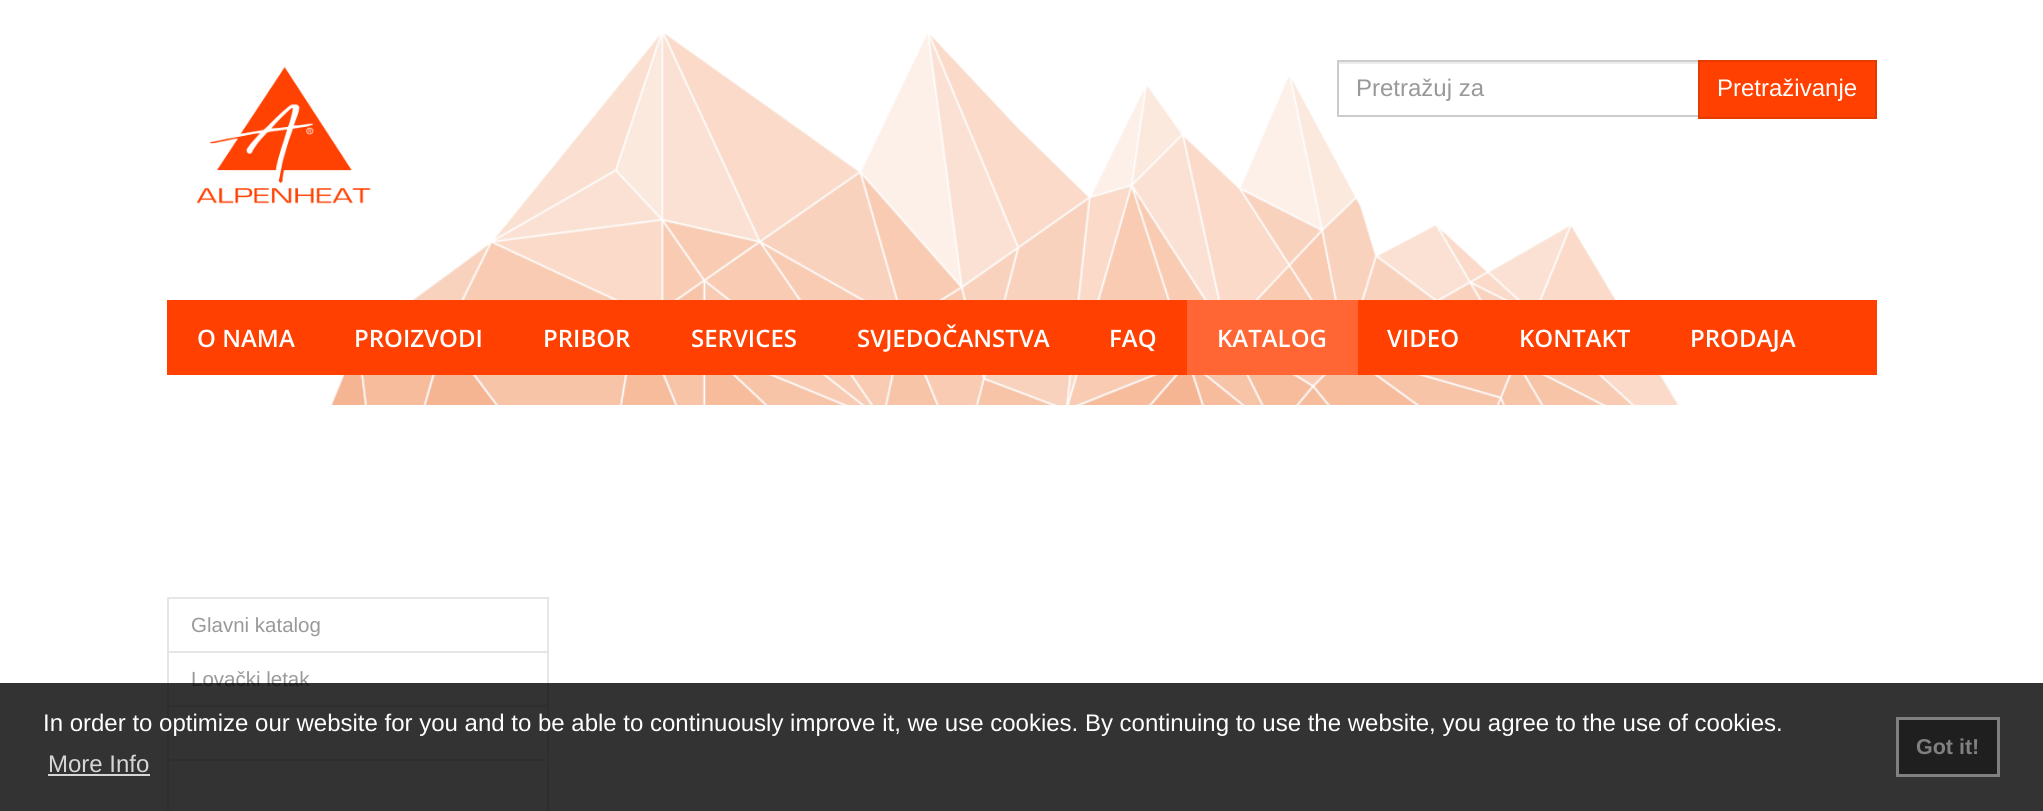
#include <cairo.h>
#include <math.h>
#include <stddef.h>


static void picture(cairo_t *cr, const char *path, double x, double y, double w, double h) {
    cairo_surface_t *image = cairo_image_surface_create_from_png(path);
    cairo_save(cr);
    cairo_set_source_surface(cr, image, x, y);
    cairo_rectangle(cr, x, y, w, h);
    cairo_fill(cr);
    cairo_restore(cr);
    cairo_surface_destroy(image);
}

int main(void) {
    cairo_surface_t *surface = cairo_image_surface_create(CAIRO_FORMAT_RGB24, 2043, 811);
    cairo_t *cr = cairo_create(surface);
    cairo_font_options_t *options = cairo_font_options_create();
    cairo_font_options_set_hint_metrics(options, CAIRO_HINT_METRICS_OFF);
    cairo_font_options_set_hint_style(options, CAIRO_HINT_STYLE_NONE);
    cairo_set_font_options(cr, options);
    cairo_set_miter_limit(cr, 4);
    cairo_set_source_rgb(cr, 1, 1, 1);
    cairo_paint(cr);
    picture(cr, "img1.png", 330, 33, 1349, 372);
    picture(cr, "img2.png", 196, 66, 175, 138);
    cairo_set_source_rgb(cr, 0.925, 0.925, 0.925);
    cairo_rectangle(cr, 1338, 62, 360, 2);
    cairo_fill(cr);
    cairo_rectangle(cr, 1338, 61, 361, 55);
    cairo_set_source_rgb(cr, 0.8, 0.8, 0.8);
    cairo_stroke(cr);
    cairo_select_font_face(cr, "Liberation Sans", CAIRO_FONT_SLANT_NORMAL, CAIRO_FONT_WEIGHT_NORMAL);
    cairo_set_font_size(cr, 24);
    cairo_set_source_rgb(cr, 0.6, 0.6, 0.6);
    cairo_move_to(cr, 1356, 96);
    cairo_show_text(cr, "Pretražuj za");
    cairo_set_source_rgb(cr, 1, 0.251, 0);
    cairo_rectangle(cr, 1699, 61, 177, 57);
    cairo_fill_preserve(cr);
    cairo_set_source_rgb(cr, 0.902, 0.227, 0);
    cairo_stroke(cr);
    cairo_set_source_rgb(cr, 1, 1, 1);
    cairo_move_to(cr, 1717, 96);
    cairo_show_text(cr, "Pretraživanje");
    cairo_set_source_rgb(cr, 1, 0.251, 0);
    cairo_rectangle(cr, 167, 300, 1710, 75);
    cairo_fill(cr);
    cairo_select_font_face(cr, "Open Sans SemiBold", CAIRO_FONT_SLANT_NORMAL, CAIRO_FONT_WEIGHT_NORMAL);
    cairo_set_source_rgb(cr, 1, 1, 1);
    cairo_move_to(cr, 197, 347);
    cairo_show_text(cr, "O NAMA");
    cairo_move_to(cr, 354, 347);
    cairo_show_text(cr, "PROIZVODI");
    cairo_move_to(cr, 543, 347);
    cairo_show_text(cr, "PRIBOR");
    cairo_move_to(cr, 691, 347);
    cairo_show_text(cr, "SERVICES");
    cairo_move_to(cr, 857, 347);
    cairo_show_text(cr, "SVJEDOČANSTVA");
    cairo_move_to(cr, 1109, 347);
    cairo_show_text(cr, "FAQ");
    cairo_set_source_rgb(cr, 1, 0.4, 0.2);
    cairo_rectangle(cr, 1187, 300, 171, 75);
    cairo_fill(cr);
    cairo_set_source_rgb(cr, 1, 1, 1);
    cairo_move_to(cr, 1217, 347);
    cairo_show_text(cr, "KATALOG");
    cairo_move_to(cr, 1387, 347);
    cairo_show_text(cr, "VIDEO");
    cairo_move_to(cr, 1519, 347);
    cairo_show_text(cr, "KONTAKT");
    cairo_move_to(cr, 1690, 347);
    cairo_show_text(cr, "PRODAJA");
    cairo_rectangle(cr, 168, 598, 380, 54);
    cairo_set_source_rgb(cr, 0.902, 0.902, 0.902);
    cairo_stroke(cr);
    cairo_select_font_face(cr, "Liberation Sans", CAIRO_FONT_SLANT_NORMAL, CAIRO_FONT_WEIGHT_NORMAL);
    cairo_set_font_size(cr, 20.5);
    cairo_set_source_rgb(cr, 0.6, 0.6, 0.6);
    cairo_move_to(cr, 191, 632);
    cairo_show_text(cr, "Glavni katalog");
    cairo_rectangle(cr, 168, 652, 380, 54);
    cairo_set_source_rgb(cr, 0.902, 0.902, 0.902);
    cairo_stroke(cr);
    cairo_set_source_rgb(cr, 0.6, 0.6, 0.6);
    cairo_move_to(cr, 191, 686);
    cairo_show_text(cr, "Lovački letak");
    cairo_rectangle(cr, 168, 706, 380, 54);
    cairo_set_source_rgb(cr, 0.902, 0.902, 0.902);
    cairo_stroke(cr);
    cairo_rectangle(cr, 168, 760, 380, 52);
    cairo_stroke(cr);
    cairo_set_source_rgba(cr, 0, 0, 0, 0.8);
    cairo_rectangle(cr, 0, 683, 2043, 128);
    cairo_fill(cr);
    cairo_set_font_size(cr, 24);
    cairo_set_source_rgb(cr, 1, 1, 1);
    cairo_move_to(cr, 43, 731);
    cairo_show_text(cr, "In order to optimize our website for you and to be able to continuously improve it, we use cookies. By continuing to use the website, you agree to the use of cookies.");
    cairo_set_source_rgb(cr, 0.839, 0.839, 0.839);
    cairo_move_to(cr, 48, 772);
    cairo_show_text(cr, "More Info");
    cairo_rectangle(cr, 48, 774, 102, 2);
    cairo_fill(cr);
    cairo_set_source_rgb(cr, 0.122, 0.122, 0.122);
    cairo_rectangle(cr, 1897.5, 718.5, 101, 57);
    cairo_fill_preserve(cr);
    cairo_set_source_rgb(cr, 0.502, 0.502, 0.502);
    cairo_set_line_width(cr, 3);
    cairo_stroke(cr);
    cairo_select_font_face(cr, "Liberation Sans", CAIRO_FONT_SLANT_NORMAL, CAIRO_FONT_WEIGHT_BOLD);
    cairo_set_font_size(cr, 21.5);
    cairo_move_to(cr, 1916, 754);
    cairo_show_text(cr, "Got it!");
    cairo_surface_write_to_png(surface, "page.png");
    cairo_font_options_destroy(options);
    cairo_destroy(cr);
    cairo_surface_destroy(surface);
    return 0;
}
